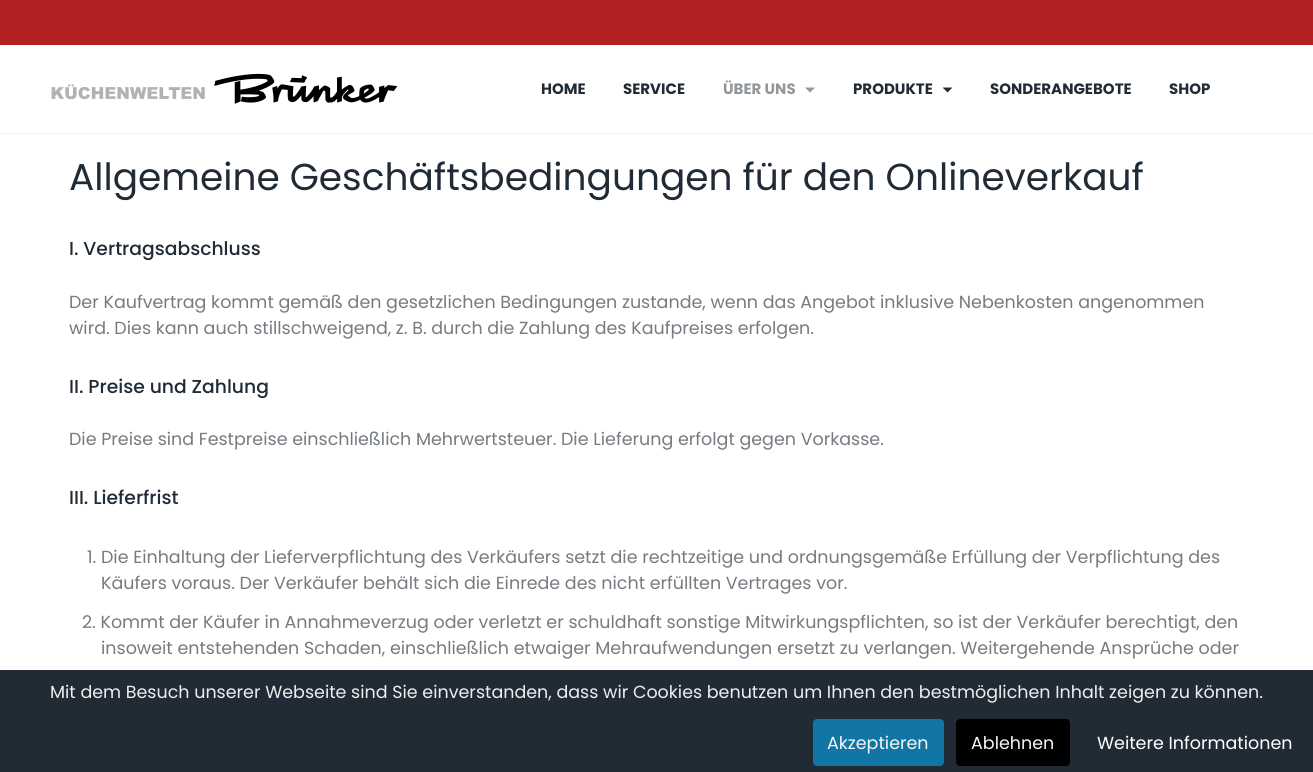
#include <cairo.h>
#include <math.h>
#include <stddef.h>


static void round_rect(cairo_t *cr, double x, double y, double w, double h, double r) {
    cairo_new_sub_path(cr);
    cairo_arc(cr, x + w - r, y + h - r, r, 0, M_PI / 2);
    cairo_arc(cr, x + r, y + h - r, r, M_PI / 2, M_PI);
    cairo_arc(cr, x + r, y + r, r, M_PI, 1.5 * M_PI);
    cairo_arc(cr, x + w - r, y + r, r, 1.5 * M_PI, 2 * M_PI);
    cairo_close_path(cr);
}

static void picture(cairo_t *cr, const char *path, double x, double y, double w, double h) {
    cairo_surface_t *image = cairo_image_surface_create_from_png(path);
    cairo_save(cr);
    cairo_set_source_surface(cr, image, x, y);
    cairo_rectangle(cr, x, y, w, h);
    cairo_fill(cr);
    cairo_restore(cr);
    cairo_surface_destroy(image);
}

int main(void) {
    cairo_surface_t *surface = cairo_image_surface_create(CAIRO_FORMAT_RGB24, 1313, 772);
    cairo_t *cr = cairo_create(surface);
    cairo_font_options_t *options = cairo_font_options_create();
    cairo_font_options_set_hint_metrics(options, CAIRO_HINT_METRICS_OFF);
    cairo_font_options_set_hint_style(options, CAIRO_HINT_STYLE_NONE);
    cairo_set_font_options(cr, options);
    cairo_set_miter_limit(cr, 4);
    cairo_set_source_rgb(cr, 1, 1, 1);
    cairo_paint(cr);
    cairo_set_source_rgb(cr, 0.949, 0.949, 0.949);
    cairo_rectangle(cr, 0, 133, 1313, 1);
    cairo_fill(cr);
    cairo_set_source_rgb(cr, 0.698, 0.133, 0.133);
    cairo_rectangle(cr, 0, 0, 1313, 45);
    cairo_fill(cr);
    picture(cr, "img1.png", 51, 73, 347, 31);
    cairo_select_font_face(cr, "Poppins", CAIRO_FONT_SLANT_NORMAL, CAIRO_FONT_WEIGHT_BOLD);
    cairo_set_font_size(cr, 15);
    cairo_set_source_rgb(cr, 0.129, 0.169, 0.212);
    cairo_move_to(cr, 541, 94);
    cairo_show_text(cr, "HOME");
    cairo_move_to(cr, 623, 94);
    cairo_show_text(cr, "SERVICE");
    cairo_set_source_rgb(cr, 0.573, 0.592, 0.612);
    cairo_move_to(cr, 723, 94);
    cairo_show_text(cr, "ÜBER UNS");
    cairo_new_path(cr);
    cairo_move_to(cr, 805, 87.5);
    cairo_line_to(cr, 815, 87.5);
    cairo_line_to(cr, 810, 92.5);
    cairo_close_path(cr);
    cairo_fill(cr);
    cairo_set_source_rgb(cr, 0.129, 0.169, 0.212);
    cairo_move_to(cr, 853, 94);
    cairo_show_text(cr, "PRODUKTE");
    cairo_new_path(cr);
    cairo_move_to(cr, 942.5, 87.5);
    cairo_line_to(cr, 952.5, 87.5);
    cairo_line_to(cr, 947.5, 92.5);
    cairo_close_path(cr);
    cairo_fill(cr);
    cairo_move_to(cr, 990, 94);
    cairo_show_text(cr, "SONDERANGEBOTE");
    cairo_move_to(cr, 1169, 94);
    cairo_show_text(cr, "SHOP");
    cairo_select_font_face(cr, "Poppins", CAIRO_FONT_SLANT_NORMAL, CAIRO_FONT_WEIGHT_NORMAL);
    cairo_set_font_size(cr, 37.5);
    cairo_move_to(cr, 69, 190);
    cairo_show_text(cr, "Allgemeine Geschäftsbedingungen für den Onlineverkauf");
    cairo_select_font_face(cr, "Poppins Medium", CAIRO_FONT_SLANT_NORMAL, CAIRO_FONT_WEIGHT_NORMAL);
    cairo_set_font_size(cr, 18.75);
    cairo_move_to(cr, 69, 255);
    cairo_show_text(cr, "I. Vertragsabschluss");
    cairo_select_font_face(cr, "Poppins", CAIRO_FONT_SLANT_NORMAL, CAIRO_FONT_WEIGHT_NORMAL);
    cairo_set_font_size(cr, 17.5);
    cairo_set_source_rgb(cr, 0.459, 0.482, 0.502);
    cairo_move_to(cr, 69, 308);
    cairo_show_text(cr, "Der Kaufvertrag kommt gemäß den gesetzlichen Bedingungen zustande, wenn das Angebot inklusive Nebenkosten angenommen");
    cairo_move_to(cr, 69, 334);
    cairo_show_text(cr, "wird. Dies kann auch stillschweigend, z. B. durch die Zahlung des Kaufpreises erfolgen.");
    cairo_select_font_face(cr, "Poppins Medium", CAIRO_FONT_SLANT_NORMAL, CAIRO_FONT_WEIGHT_NORMAL);
    cairo_set_font_size(cr, 18.75);
    cairo_set_source_rgb(cr, 0.129, 0.169, 0.212);
    cairo_move_to(cr, 69, 393);
    cairo_show_text(cr, "II. Preise und Zahlung");
    cairo_select_font_face(cr, "Poppins", CAIRO_FONT_SLANT_NORMAL, CAIRO_FONT_WEIGHT_NORMAL);
    cairo_set_font_size(cr, 17.5);
    cairo_set_source_rgb(cr, 0.459, 0.482, 0.502);
    cairo_move_to(cr, 69, 445);
    cairo_show_text(cr, "Die Preise sind Festpreise einschließlich Mehrwertsteuer. Die Lieferung erfolgt gegen Vorkasse.");
    cairo_select_font_face(cr, "Poppins Medium", CAIRO_FONT_SLANT_NORMAL, CAIRO_FONT_WEIGHT_NORMAL);
    cairo_set_font_size(cr, 18.75);
    cairo_set_source_rgb(cr, 0.129, 0.169, 0.212);
    cairo_move_to(cr, 69, 504);
    cairo_show_text(cr, "III. Lieferfrist");
    cairo_select_font_face(cr, "Poppins", CAIRO_FONT_SLANT_NORMAL, CAIRO_FONT_WEIGHT_NORMAL);
    cairo_set_font_size(cr, 17.5);
    cairo_set_source_rgb(cr, 0.459, 0.482, 0.502);
    cairo_move_to(cr, 87, 563);
    cairo_show_text(cr, "1. Die Einhaltung der Lieferverpflichtung des Verkäufers setzt die rechtzeitige und ordnungsgemäße Erfüllung der Verpflichtung des");
    cairo_move_to(cr, 101, 589);
    cairo_show_text(cr, "Käufers voraus. Der Verkäufer behält sich die Einrede des nicht erfüllten Vertrages vor.");
    cairo_move_to(cr, 82, 628);
    cairo_show_text(cr, "2. Kommt der Käufer in Annahmeverzug oder verletzt er schuldhaft sonstige Mitwirkungspflichten, so ist der Verkäufer berechtigt, den");
    cairo_move_to(cr, 101, 654);
    cairo_show_text(cr, "insoweit entstehenden Schaden, einschließlich etwaiger Mehraufwendungen ersetzt zu verlangen. Weitergehende Ansprüche oder");
    cairo_set_source_rgb(cr, 0.129, 0.169, 0.212);
    cairo_rectangle(cr, 0, 670, 1313, 102);
    cairo_fill(cr);
    cairo_set_source_rgb(cr, 0.933, 0.933, 0.933);
    cairo_move_to(cr, 50, 698);
    cairo_show_text(cr, "Mit dem Besuch unserer Webseite sind Sie einverstanden, dass wir Cookies benutzen um Ihnen den bestmöglichen Inhalt zeigen zu können.");
    cairo_set_source_rgb(cr, 0.067, 0.463, 0.651);
    round_rect(cr, 814.5, 720.5, 128, 44, 2.5);
    cairo_fill_preserve(cr);
    cairo_set_line_width(cr, 3);
    cairo_stroke(cr);
    cairo_set_source_rgb(cr, 0.961, 0.961, 0.961);
    cairo_move_to(cr, 827, 749);
    cairo_show_text(cr, "Akzeptieren");
    cairo_set_source_rgb(cr, 0, 0, 0);
    round_rect(cr, 957.5, 720.5, 111, 44, 2.5);
    cairo_fill_preserve(cr);
    cairo_stroke(cr);
    cairo_set_source_rgb(cr, 0.961, 0.961, 0.961);
    cairo_move_to(cr, 971, 749);
    cairo_show_text(cr, "Ablehnen");
    cairo_set_source_rgb(cr, 1, 1, 1);
    cairo_move_to(cr, 1097, 749);
    cairo_show_text(cr, "Weitere Informationen");
    cairo_surface_write_to_png(surface, "page.png");
    cairo_font_options_destroy(options);
    cairo_destroy(cr);
    cairo_surface_destroy(surface);
    return 0;
}
